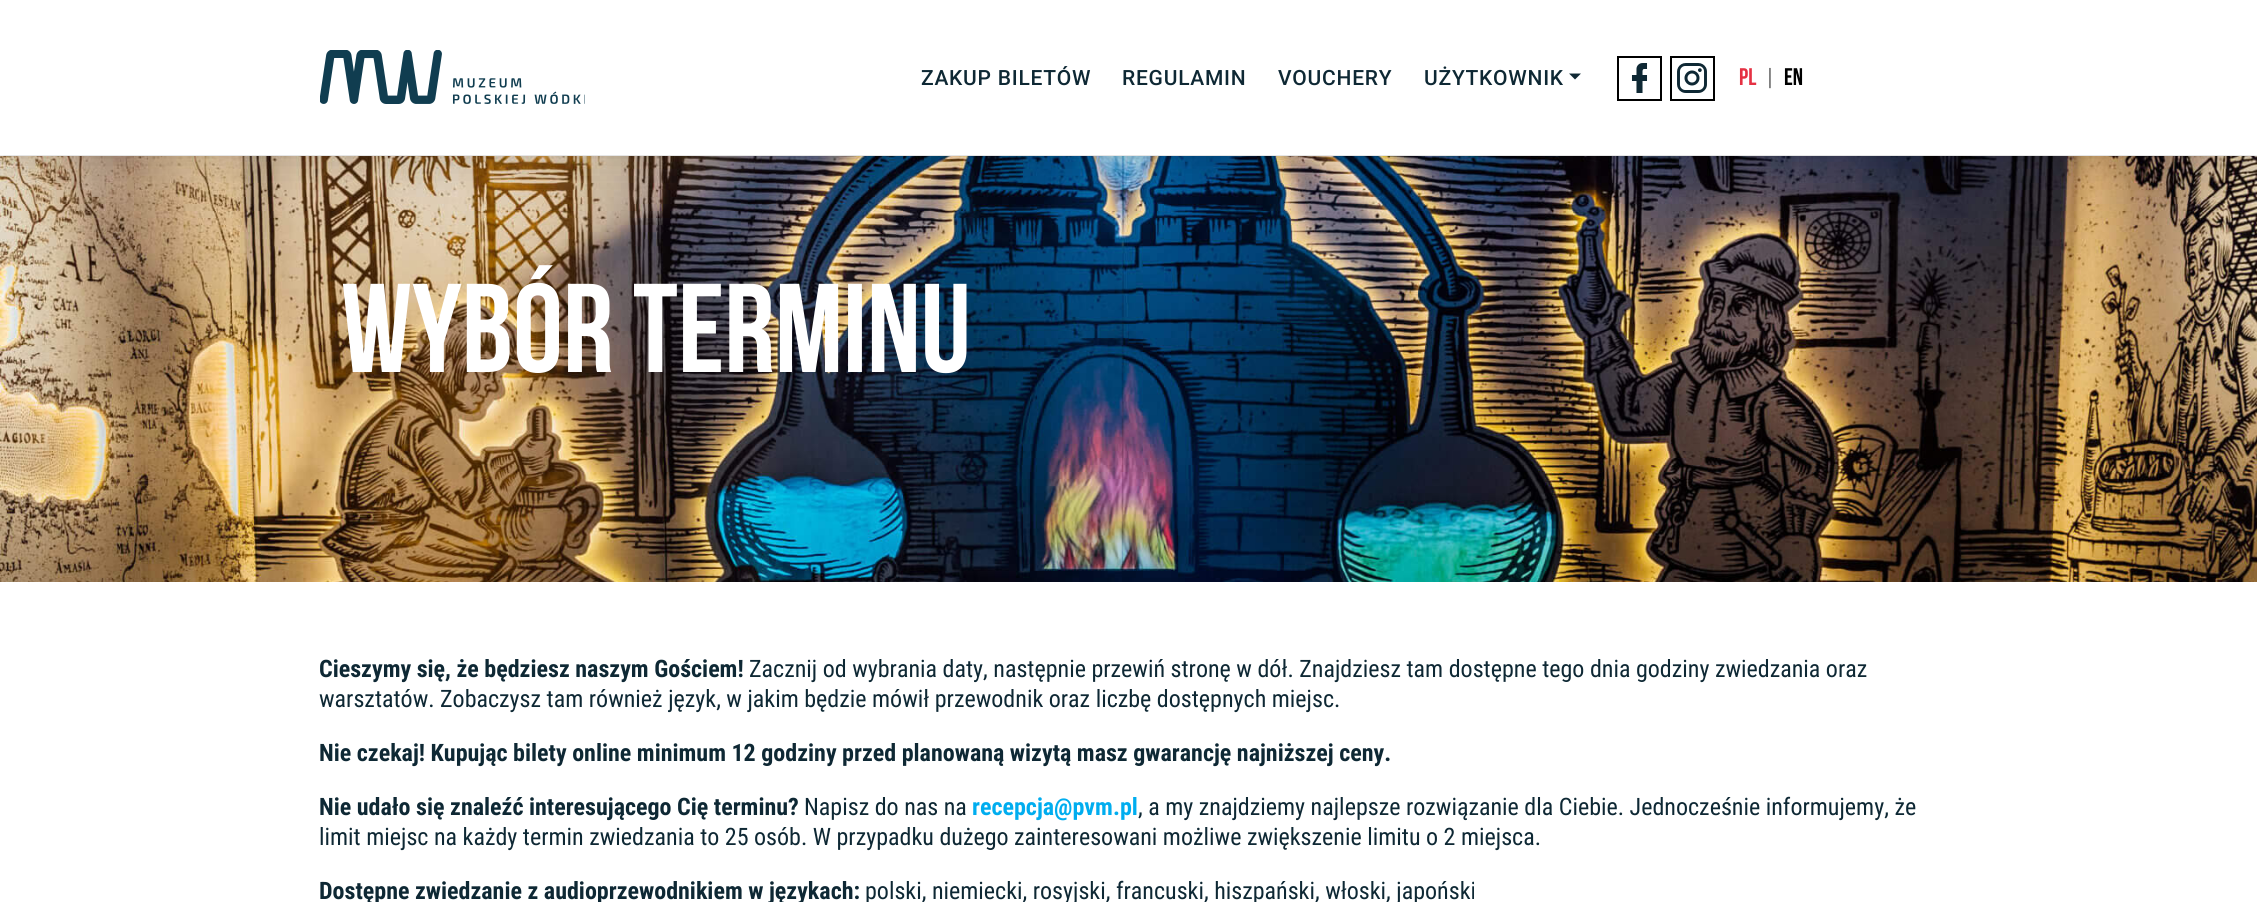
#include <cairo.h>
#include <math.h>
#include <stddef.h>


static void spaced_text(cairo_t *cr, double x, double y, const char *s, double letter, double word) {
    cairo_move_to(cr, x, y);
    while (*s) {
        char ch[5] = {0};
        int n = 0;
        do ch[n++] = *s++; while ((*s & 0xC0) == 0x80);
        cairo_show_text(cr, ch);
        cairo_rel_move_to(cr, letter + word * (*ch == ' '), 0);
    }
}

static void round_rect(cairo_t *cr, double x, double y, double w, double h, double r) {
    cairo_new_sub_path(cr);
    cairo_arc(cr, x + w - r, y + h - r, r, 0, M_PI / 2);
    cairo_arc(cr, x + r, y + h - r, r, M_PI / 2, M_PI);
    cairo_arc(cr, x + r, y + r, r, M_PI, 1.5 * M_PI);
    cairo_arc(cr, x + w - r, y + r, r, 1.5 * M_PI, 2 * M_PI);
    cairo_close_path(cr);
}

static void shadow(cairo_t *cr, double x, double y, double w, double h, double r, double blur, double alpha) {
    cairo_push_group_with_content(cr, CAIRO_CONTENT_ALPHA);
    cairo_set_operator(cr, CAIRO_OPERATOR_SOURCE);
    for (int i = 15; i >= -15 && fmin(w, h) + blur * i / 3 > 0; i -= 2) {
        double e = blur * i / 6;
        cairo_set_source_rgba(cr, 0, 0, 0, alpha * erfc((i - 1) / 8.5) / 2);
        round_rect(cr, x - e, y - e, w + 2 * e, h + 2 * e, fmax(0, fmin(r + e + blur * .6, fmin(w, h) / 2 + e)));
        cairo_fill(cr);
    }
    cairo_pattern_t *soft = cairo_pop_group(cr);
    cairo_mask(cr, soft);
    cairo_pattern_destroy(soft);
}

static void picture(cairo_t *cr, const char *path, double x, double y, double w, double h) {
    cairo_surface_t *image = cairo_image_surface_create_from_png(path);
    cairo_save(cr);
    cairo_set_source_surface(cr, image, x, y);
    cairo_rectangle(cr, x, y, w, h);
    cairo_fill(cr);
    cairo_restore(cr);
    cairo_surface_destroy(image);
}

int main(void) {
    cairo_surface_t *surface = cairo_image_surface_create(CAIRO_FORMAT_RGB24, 2257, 902);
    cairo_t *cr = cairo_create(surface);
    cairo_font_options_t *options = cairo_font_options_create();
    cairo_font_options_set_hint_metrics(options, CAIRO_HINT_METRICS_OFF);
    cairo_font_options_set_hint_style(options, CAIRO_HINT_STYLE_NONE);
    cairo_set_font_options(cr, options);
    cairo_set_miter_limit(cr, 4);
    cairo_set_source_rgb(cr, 1, 1, 1);
    cairo_paint(cr);
    picture(cr, "img4.png", 0, 156, 2257, 426);
    cairo_set_source_rgb(cr, 0, 0, 0);
    shadow(cr, 0, 0, 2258, 155, 0, 22.5, 0.2);
    cairo_set_source_rgb(cr, 1, 1, 1);
    cairo_rectangle(cr, 0, 0, 2257, 155);
    cairo_fill(cr);
    picture(cr, "img1.png", 320, 50, 265, 54);
    cairo_select_font_face(cr, "Roboto Medium", CAIRO_FONT_SLANT_NORMAL, CAIRO_FONT_WEIGHT_NORMAL);
    cairo_set_font_size(cr, 21);
    cairo_set_source_rgb(cr, 0.055, 0.157, 0.204);
    spaced_text(cr, 921, 85, "ZAKUP BILETÓW", 0.75, 0);
    spaced_text(cr, 1122, 85, "REGULAMIN", 0.75, 0);
    spaced_text(cr, 1278, 85, "VOUCHERY", 0.75, 0);
    spaced_text(cr, 1424, 85, "UŻYTKOWNIK", 0.75, 0);
    cairo_set_source_rgb(cr, 0.063, 0.157, 0.204);
    cairo_new_path(cr);
    cairo_move_to(cr, 1569, 73.5);
    cairo_line_to(cr, 1581, 73.5);
    cairo_line_to(cr, 1575, 79.5);
    cairo_close_path(cr);
    cairo_fill(cr);
    cairo_rectangle(cr, 1618, 57, 43, 43);
    cairo_set_source_rgb(cr, 0, 0, 0);
    cairo_stroke(cr);
    picture(cr, "img2.png", 1631, 63, 17, 30);
    cairo_rectangle(cr, 1671, 57, 43, 43);
    cairo_stroke(cr);
    picture(cr, "img3.png", 1677, 63, 30, 30);
    cairo_select_font_face(cr, "Bebas Neue", CAIRO_FONT_SLANT_NORMAL, CAIRO_FONT_WEIGHT_BOLD);
    cairo_set_font_size(cr, 24);
    cairo_set_source_rgb(cr, 0.898, 0.192, 0.263);
    cairo_move_to(cr, 1739, 85);
    cairo_show_text(cr, "PL");
    cairo_select_font_face(cr, "Roboto Condensed", CAIRO_FONT_SLANT_NORMAL, CAIRO_FONT_WEIGHT_NORMAL);
    cairo_set_source_rgb(cr, 0.471, 0.471, 0.471);
    cairo_move_to(cr, 1767, 85);
    cairo_show_text(cr, "|");
    cairo_select_font_face(cr, "Bebas Neue", CAIRO_FONT_SLANT_NORMAL, CAIRO_FONT_WEIGHT_BOLD);
    cairo_set_source_rgb(cr, 0, 0, 0);
    cairo_move_to(cr, 1784, 85);
    cairo_show_text(cr, "EN");
    cairo_set_font_size(cr, 126);
    cairo_set_source_rgb(cr, 1, 1, 1);
    cairo_move_to(cr, 341, 372);
    cairo_show_text(cr, "Wybór terminu");
    cairo_select_font_face(cr, "Roboto Condensed", CAIRO_FONT_SLANT_NORMAL, CAIRO_FONT_WEIGHT_BOLD);
    cairo_set_font_size(cr, 24);
    cairo_set_source_rgb(cr, 0.055, 0.157, 0.204);
    cairo_move_to(cr, 319, 677);
    cairo_show_text(cr, "Cieszymy się, że będziesz naszym Gościem!");
    cairo_select_font_face(cr, "Roboto Condensed", CAIRO_FONT_SLANT_NORMAL, CAIRO_FONT_WEIGHT_NORMAL);
    cairo_move_to(cr, 749, 677);
    cairo_show_text(cr, "Zacznij od wybrania daty, następnie przewiń stronę w dół. Znajdziesz tam dostępne tego dnia godziny zwiedzania oraz");
    cairo_move_to(cr, 319, 707);
    cairo_show_text(cr, "warsztatów. Zobaczysz tam również język, w jakim będzie mówił przewodnik oraz liczbę dostępnych miejsc.");
    cairo_select_font_face(cr, "Roboto Condensed", CAIRO_FONT_SLANT_NORMAL, CAIRO_FONT_WEIGHT_BOLD);
    cairo_move_to(cr, 319, 761);
    cairo_show_text(cr, "Nie czekaj! Kupując bilety online minimum 12 godziny przed planowaną wizytą masz gwarancję najniższej ceny.");
    cairo_move_to(cr, 319, 815);
    cairo_show_text(cr, "Nie udało się znaleźć interesującego Cię terminu?");
    cairo_select_font_face(cr, "Roboto Condensed", CAIRO_FONT_SLANT_NORMAL, CAIRO_FONT_WEIGHT_NORMAL);
    cairo_move_to(cr, 804, 815);
    cairo_show_text(cr, "Napisz do nas na");
    cairo_select_font_face(cr, "Roboto Condensed", CAIRO_FONT_SLANT_NORMAL, CAIRO_FONT_WEIGHT_BOLD);
    cairo_set_source_rgb(cr, 0, 0.678, 0.937);
    cairo_move_to(cr, 972, 815);
    cairo_show_text(cr, "recepcja@pvm.pl");
    cairo_select_font_face(cr, "Roboto Condensed", CAIRO_FONT_SLANT_NORMAL, CAIRO_FONT_WEIGHT_NORMAL);
    cairo_set_source_rgb(cr, 0.055, 0.157, 0.204);
    cairo_move_to(cr, 1138, 815);
    cairo_show_text(cr, ", a my znajdziemy najlepsze rozwiązanie dla Ciebie. Jednocześnie informujemy, że");
    cairo_move_to(cr, 319, 845);
    cairo_show_text(cr, "limit miejsc na każdy termin zwiedzania to 25 osób. W przypadku dużego zainteresowani możliwe zwiększenie limitu o 2 miejsca.");
    cairo_select_font_face(cr, "Roboto Condensed", CAIRO_FONT_SLANT_NORMAL, CAIRO_FONT_WEIGHT_BOLD);
    cairo_move_to(cr, 319, 899);
    cairo_show_text(cr, "Dostępne zwiedzanie z audioprzewodnikiem w językach:");
    cairo_select_font_face(cr, "Roboto Condensed", CAIRO_FONT_SLANT_NORMAL, CAIRO_FONT_WEIGHT_NORMAL);
    cairo_move_to(cr, 865, 899);
    cairo_show_text(cr, "polski, niemiecki, rosyjski, francuski, hiszpański, włoski, japoński");
    cairo_surface_write_to_png(surface, "page.png");
    cairo_font_options_destroy(options);
    cairo_destroy(cr);
    cairo_surface_destroy(surface);
    return 0;
}
